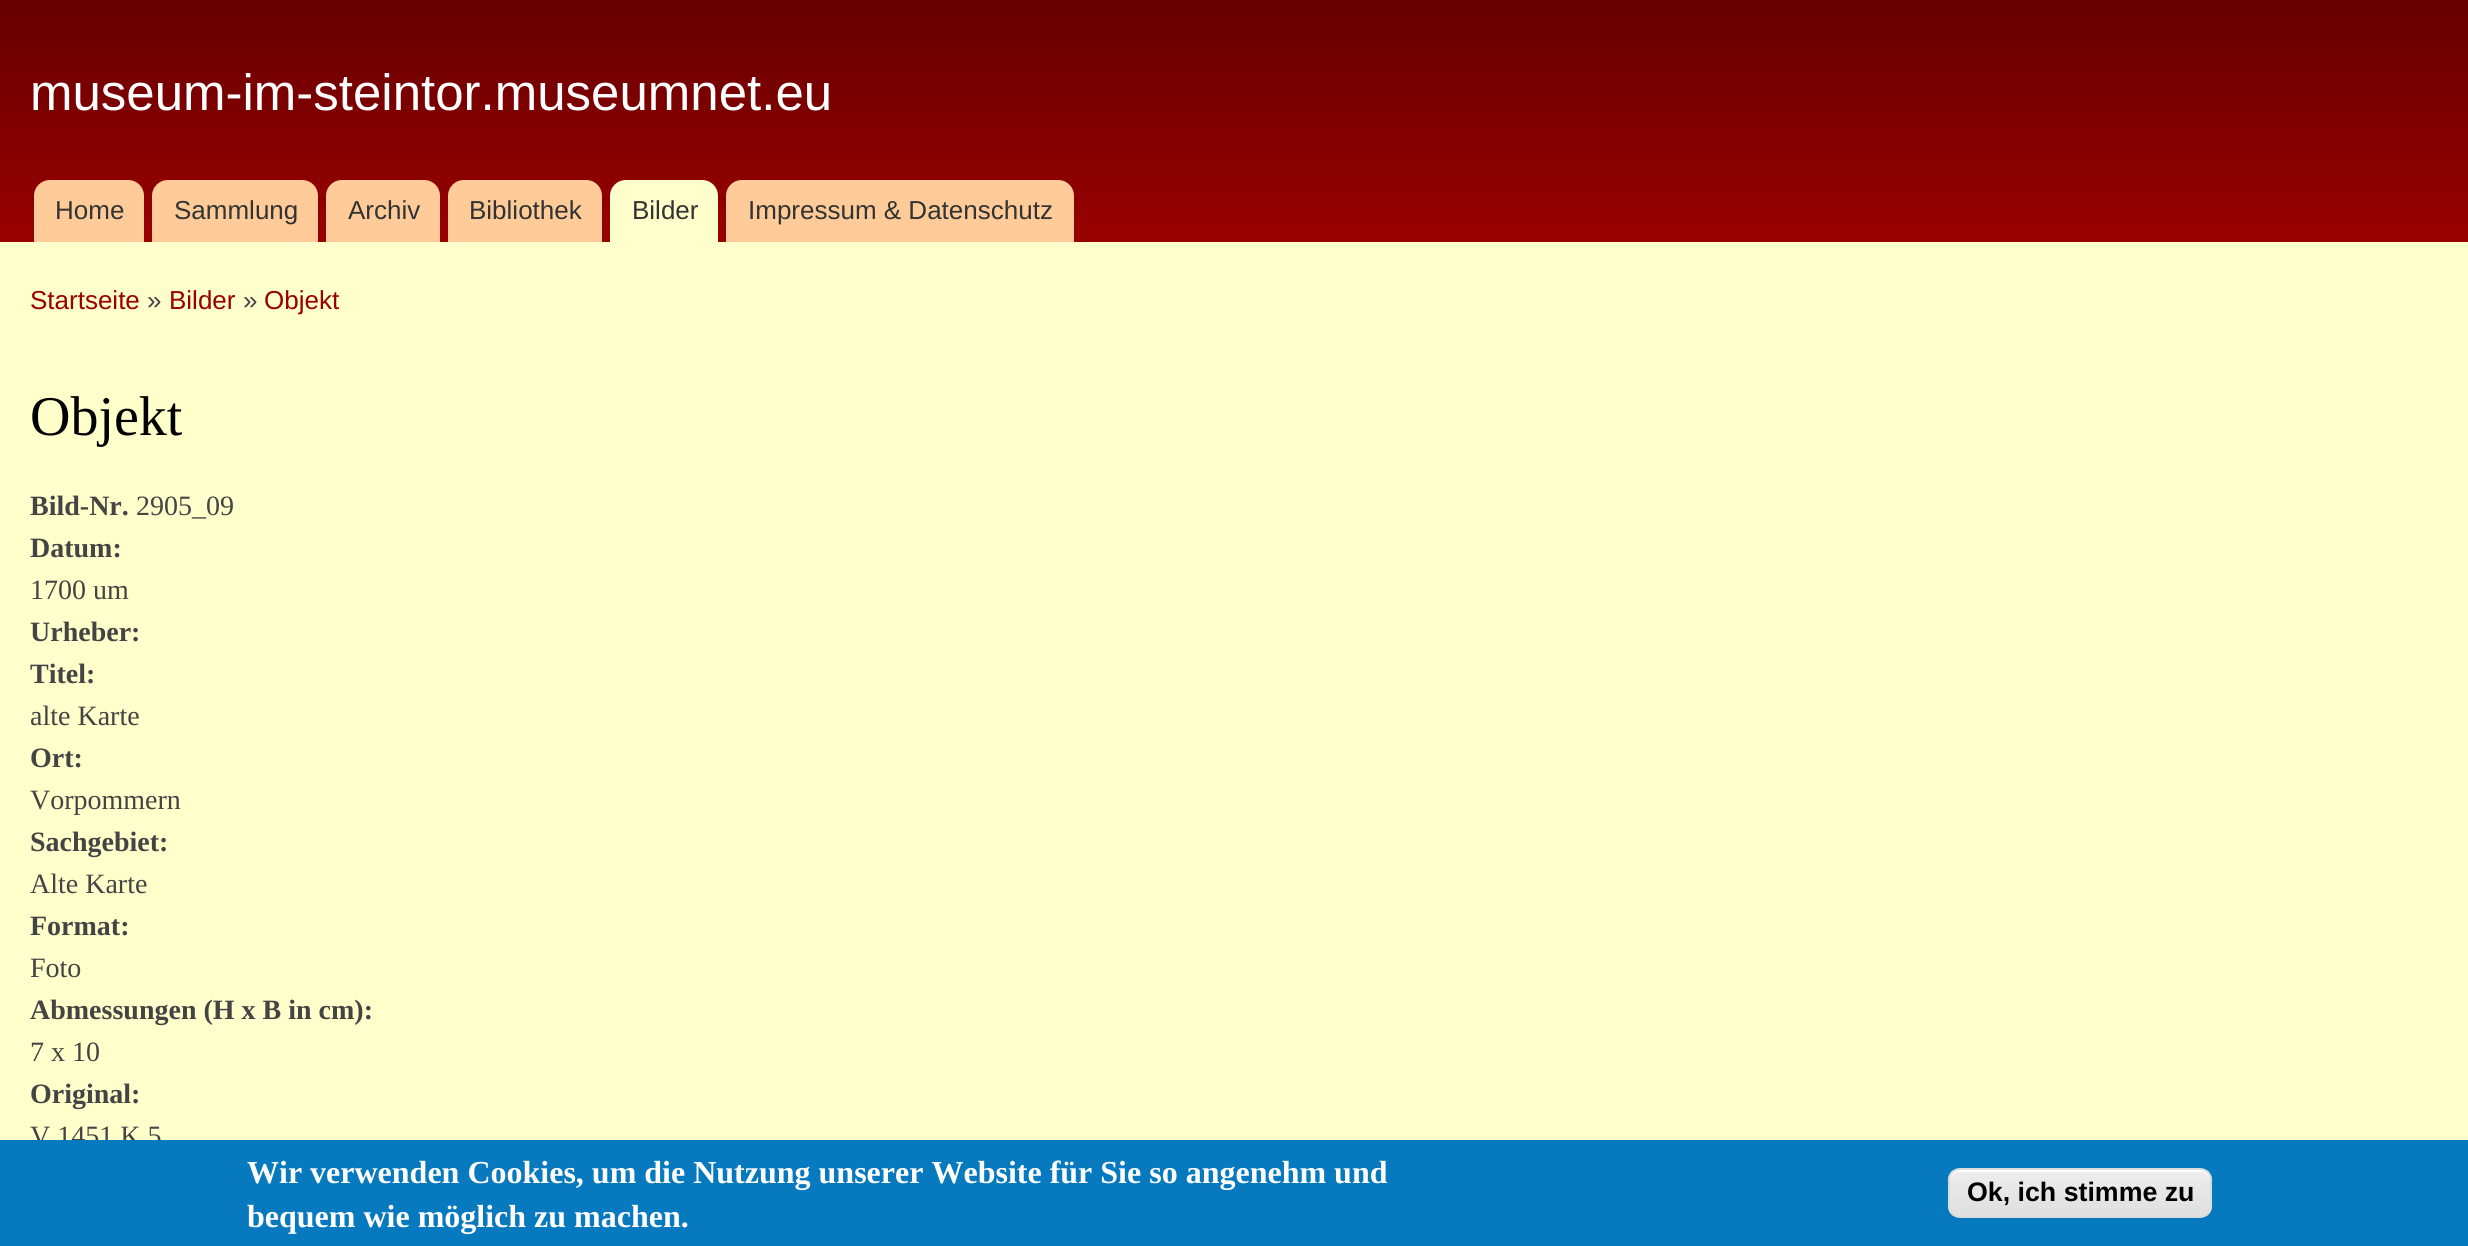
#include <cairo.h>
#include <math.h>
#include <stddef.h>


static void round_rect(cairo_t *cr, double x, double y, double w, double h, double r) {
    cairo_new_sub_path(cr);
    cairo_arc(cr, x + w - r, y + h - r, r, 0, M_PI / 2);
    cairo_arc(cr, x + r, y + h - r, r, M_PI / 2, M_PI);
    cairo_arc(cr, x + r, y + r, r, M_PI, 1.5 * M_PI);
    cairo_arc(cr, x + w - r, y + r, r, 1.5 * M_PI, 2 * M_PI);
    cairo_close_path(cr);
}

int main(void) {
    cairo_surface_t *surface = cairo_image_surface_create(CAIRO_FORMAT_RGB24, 2468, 1246);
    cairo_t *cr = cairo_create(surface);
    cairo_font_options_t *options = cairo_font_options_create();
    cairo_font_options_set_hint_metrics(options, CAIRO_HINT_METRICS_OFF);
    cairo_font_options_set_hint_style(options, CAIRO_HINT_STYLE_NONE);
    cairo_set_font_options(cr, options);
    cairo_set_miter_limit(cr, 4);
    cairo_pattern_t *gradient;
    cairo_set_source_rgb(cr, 1, 1, 0.8);
    cairo_paint(cr);
    gradient = cairo_pattern_create_linear(1234, 0, 1234, 242);
    cairo_pattern_add_color_stop_rgba(gradient, 0, 0.4, 0, 0, 1);
    cairo_pattern_add_color_stop_rgba(gradient, 1, 0.6, 0, 0, 1);
    cairo_set_source(cr, gradient);
    cairo_pattern_destroy(gradient);
    cairo_rectangle(cr, 0, 0, 2468, 242);
    cairo_fill(cr);
    cairo_select_font_face(cr, "Liberation Sans", CAIRO_FONT_SLANT_NORMAL, CAIRO_FONT_WEIGHT_NORMAL);
    cairo_set_font_size(cr, 51);
    cairo_set_source_rgb(cr, 1, 0.996, 1);
    cairo_move_to(cr, 30, 110);
    cairo_show_text(cr, "museum-im-steintor.museumnet.eu");
    cairo_set_source_rgb(cr, 1, 0.8, 0.6);
    cairo_new_path(cr);
    cairo_move_to(cr, 50, 180);
    cairo_line_to(cr, 128, 180);
    cairo_curve_to(cr, 137, 180, 144, 187, 144, 196);
    cairo_line_to(cr, 144, 242);
    cairo_line_to(cr, 34, 242);
    cairo_line_to(cr, 34, 196);
    cairo_curve_to(cr, 34, 187, 41, 180, 50, 180);
    cairo_close_path(cr);
    cairo_fill(cr);
    cairo_set_font_size(cr, 26);
    cairo_set_source_rgb(cr, 0.2, 0.2, 0.2);
    cairo_move_to(cr, 55, 219);
    cairo_show_text(cr, "Home");
    cairo_set_source_rgb(cr, 1, 0.8, 0.6);
    cairo_new_path(cr);
    cairo_move_to(cr, 168, 180);
    cairo_line_to(cr, 302, 180);
    cairo_curve_to(cr, 311, 180, 318, 187, 318, 196);
    cairo_line_to(cr, 318, 242);
    cairo_line_to(cr, 152, 242);
    cairo_line_to(cr, 152, 196);
    cairo_curve_to(cr, 152, 187, 159, 180, 168, 180);
    cairo_close_path(cr);
    cairo_fill(cr);
    cairo_set_source_rgb(cr, 0.2, 0.2, 0.2);
    cairo_move_to(cr, 174, 219);
    cairo_show_text(cr, "Sammlung");
    cairo_set_source_rgb(cr, 1, 0.8, 0.6);
    cairo_new_path(cr);
    cairo_move_to(cr, 342, 180);
    cairo_line_to(cr, 424, 180);
    cairo_curve_to(cr, 433, 180, 440, 187, 440, 196);
    cairo_line_to(cr, 440, 242);
    cairo_line_to(cr, 326, 242);
    cairo_line_to(cr, 326, 196);
    cairo_curve_to(cr, 326, 187, 333, 180, 342, 180);
    cairo_close_path(cr);
    cairo_fill(cr);
    cairo_set_source_rgb(cr, 0.2, 0.2, 0.2);
    cairo_move_to(cr, 348, 219);
    cairo_show_text(cr, "Archiv");
    cairo_set_source_rgb(cr, 1, 0.8, 0.6);
    cairo_new_path(cr);
    cairo_move_to(cr, 464, 180);
    cairo_line_to(cr, 586, 180);
    cairo_curve_to(cr, 595, 180, 602, 187, 602, 196);
    cairo_line_to(cr, 602, 242);
    cairo_line_to(cr, 448, 242);
    cairo_line_to(cr, 448, 196);
    cairo_curve_to(cr, 448, 187, 455, 180, 464, 180);
    cairo_close_path(cr);
    cairo_fill(cr);
    cairo_set_source_rgb(cr, 0.2, 0.2, 0.2);
    cairo_move_to(cr, 469, 219);
    cairo_show_text(cr, "Bibliothek");
    cairo_set_source_rgb(cr, 1, 1, 0.8);
    cairo_new_path(cr);
    cairo_move_to(cr, 626, 180);
    cairo_line_to(cr, 702, 180);
    cairo_curve_to(cr, 711, 180, 718, 187, 718, 196);
    cairo_line_to(cr, 718, 242);
    cairo_line_to(cr, 610, 242);
    cairo_line_to(cr, 610, 196);
    cairo_curve_to(cr, 610, 187, 617, 180, 626, 180);
    cairo_close_path(cr);
    cairo_fill(cr);
    cairo_set_source_rgb(cr, 0.2, 0.2, 0.2);
    cairo_move_to(cr, 632, 219);
    cairo_show_text(cr, "Bilder");
    cairo_set_source_rgb(cr, 1, 0.8, 0.6);
    cairo_new_path(cr);
    cairo_move_to(cr, 742, 180);
    cairo_line_to(cr, 1058, 180);
    cairo_curve_to(cr, 1067, 180, 1074, 187, 1074, 196);
    cairo_line_to(cr, 1074, 242);
    cairo_line_to(cr, 726, 242);
    cairo_line_to(cr, 726, 196);
    cairo_curve_to(cr, 726, 187, 733, 180, 742, 180);
    cairo_close_path(cr);
    cairo_fill(cr);
    cairo_set_source_rgb(cr, 0.2, 0.2, 0.2);
    cairo_move_to(cr, 748, 219);
    cairo_show_text(cr, "Impressum & Datenschutz");
    cairo_set_source_rgb(cr, 0.6, 0, 0);
    cairo_move_to(cr, 30, 309);
    cairo_show_text(cr, "Startseite");
    cairo_set_source_rgb(cr, 0.267, 0.267, 0.267);
    cairo_move_to(cr, 147, 309);
    cairo_show_text(cr, "»");
    cairo_set_source_rgb(cr, 0.6, 0, 0);
    cairo_move_to(cr, 169, 309);
    cairo_show_text(cr, "Bilder");
    cairo_set_source_rgb(cr, 0.267, 0.267, 0.267);
    cairo_move_to(cr, 243, 309);
    cairo_show_text(cr, "»");
    cairo_set_source_rgb(cr, 0.6, 0, 0);
    cairo_move_to(cr, 264, 309);
    cairo_show_text(cr, "Objekt");
    cairo_select_font_face(cr, "Liberation Serif", CAIRO_FONT_SLANT_NORMAL, CAIRO_FONT_WEIGHT_NORMAL);
    cairo_set_font_size(cr, 56);
    cairo_set_source_rgb(cr, 0, 0, 0);
    cairo_move_to(cr, 30, 435);
    cairo_show_text(cr, "Objekt");
    cairo_select_font_face(cr, "Liberation Serif", CAIRO_FONT_SLANT_NORMAL, CAIRO_FONT_WEIGHT_BOLD);
    cairo_set_font_size(cr, 28);
    cairo_set_source_rgb(cr, 0.267, 0.267, 0.267);
    cairo_move_to(cr, 30, 515);
    cairo_show_text(cr, "Bild-Nr.");
    cairo_select_font_face(cr, "Liberation Serif", CAIRO_FONT_SLANT_NORMAL, CAIRO_FONT_WEIGHT_NORMAL);
    cairo_move_to(cr, 136, 515);
    cairo_show_text(cr, "2905_09");
    cairo_select_font_face(cr, "Liberation Serif", CAIRO_FONT_SLANT_NORMAL, CAIRO_FONT_WEIGHT_BOLD);
    cairo_move_to(cr, 30, 557);
    cairo_show_text(cr, "Datum:");
    cairo_select_font_face(cr, "Liberation Serif", CAIRO_FONT_SLANT_NORMAL, CAIRO_FONT_WEIGHT_NORMAL);
    cairo_move_to(cr, 30, 599);
    cairo_show_text(cr, "1700 um");
    cairo_select_font_face(cr, "Liberation Serif", CAIRO_FONT_SLANT_NORMAL, CAIRO_FONT_WEIGHT_BOLD);
    cairo_move_to(cr, 30, 641);
    cairo_show_text(cr, "Urheber:");
    cairo_move_to(cr, 30, 683);
    cairo_show_text(cr, "Titel:");
    cairo_select_font_face(cr, "Liberation Serif", CAIRO_FONT_SLANT_NORMAL, CAIRO_FONT_WEIGHT_NORMAL);
    cairo_move_to(cr, 30, 725);
    cairo_show_text(cr, "alte Karte");
    cairo_select_font_face(cr, "Liberation Serif", CAIRO_FONT_SLANT_NORMAL, CAIRO_FONT_WEIGHT_BOLD);
    cairo_move_to(cr, 30, 767);
    cairo_show_text(cr, "Ort:");
    cairo_select_font_face(cr, "Liberation Serif", CAIRO_FONT_SLANT_NORMAL, CAIRO_FONT_WEIGHT_NORMAL);
    cairo_move_to(cr, 30, 809);
    cairo_show_text(cr, "Vorpommern");
    cairo_select_font_face(cr, "Liberation Serif", CAIRO_FONT_SLANT_NORMAL, CAIRO_FONT_WEIGHT_BOLD);
    cairo_move_to(cr, 30, 851);
    cairo_show_text(cr, "Sachgebiet:");
    cairo_select_font_face(cr, "Liberation Serif", CAIRO_FONT_SLANT_NORMAL, CAIRO_FONT_WEIGHT_NORMAL);
    cairo_move_to(cr, 30, 893);
    cairo_show_text(cr, "Alte Karte");
    cairo_select_font_face(cr, "Liberation Serif", CAIRO_FONT_SLANT_NORMAL, CAIRO_FONT_WEIGHT_BOLD);
    cairo_move_to(cr, 30, 935);
    cairo_show_text(cr, "Format:");
    cairo_select_font_face(cr, "Liberation Serif", CAIRO_FONT_SLANT_NORMAL, CAIRO_FONT_WEIGHT_NORMAL);
    cairo_move_to(cr, 30, 977);
    cairo_show_text(cr, "Foto");
    cairo_select_font_face(cr, "Liberation Serif", CAIRO_FONT_SLANT_NORMAL, CAIRO_FONT_WEIGHT_BOLD);
    cairo_move_to(cr, 30, 1019);
    cairo_show_text(cr, "Abmessungen (H x B in cm):");
    cairo_select_font_face(cr, "Liberation Serif", CAIRO_FONT_SLANT_NORMAL, CAIRO_FONT_WEIGHT_NORMAL);
    cairo_move_to(cr, 30, 1061);
    cairo_show_text(cr, "7 x 10");
    cairo_select_font_face(cr, "Liberation Serif", CAIRO_FONT_SLANT_NORMAL, CAIRO_FONT_WEIGHT_BOLD);
    cairo_move_to(cr, 30, 1103);
    cairo_show_text(cr, "Original:");
    cairo_select_font_face(cr, "Liberation Serif", CAIRO_FONT_SLANT_NORMAL, CAIRO_FONT_WEIGHT_NORMAL);
    cairo_move_to(cr, 30, 1145);
    cairo_show_text(cr, "V 1451 K 5");
    cairo_set_source_rgb(cr, 0.027, 0.475, 0.749);
    cairo_rectangle(cr, 0, 1140, 2468, 106);
    cairo_fill(cr);
    cairo_select_font_face(cr, "Liberation Serif", CAIRO_FONT_SLANT_NORMAL, CAIRO_FONT_WEIGHT_BOLD);
    cairo_set_font_size(cr, 32);
    cairo_set_source_rgb(cr, 1, 0.996, 1);
    cairo_move_to(cr, 247, 1183);
    cairo_show_text(cr, "Wir verwenden Cookies, um die Nutzung unserer Website für Sie so angenehm und");
    cairo_move_to(cr, 247, 1227);
    cairo_show_text(cr, "bequem wie möglich zu machen.");
    cairo_save(cr);
    round_rect(cr, 1948, 1168, 264, 50, 12);
    cairo_clip(cr);
    gradient = cairo_pattern_create_linear(2080, 1170, 2080, 1216);
    cairo_pattern_add_color_stop_rgba(gradient, 0.05, 0.929, 0.929, 0.929, 1);
    cairo_pattern_add_color_stop_rgba(gradient, 1, 0.875, 0.875, 0.875, 1);
    cairo_set_source(cr, gradient);
    cairo_pattern_destroy(gradient);
    cairo_rectangle(cr, 1948, 1170, 264, 46);
    cairo_fill(cr);
    cairo_restore(cr);
    cairo_set_source_rgb(cr, 1, 1, 1);
    cairo_new_path(cr);
    cairo_move_to(cr, 1960, 1172);
    cairo_line_to(cr, 2200, 1172);
    cairo_curve_to(cr, 2206, 1172, 2210, 1176, 2210, 1182);
    cairo_line_to(cr, 2210, 1180);
    cairo_curve_to(cr, 2210, 1174, 2206, 1170, 2200, 1170);
    cairo_line_to(cr, 1960, 1170);
    cairo_curve_to(cr, 1954, 1170, 1950, 1174, 1950, 1180);
    cairo_line_to(cr, 1950, 1182);
    cairo_curve_to(cr, 1950, 1176, 1954, 1172, 1960, 1172);
    cairo_close_path(cr);
    cairo_fill(cr);
    round_rect(cr, 1949, 1169, 262, 48, 11);
    cairo_set_source_rgb(cr, 0.863, 0.863, 0.863);
    cairo_stroke(cr);
    cairo_select_font_face(cr, "Liberation Sans", CAIRO_FONT_SLANT_NORMAL, CAIRO_FONT_WEIGHT_BOLD);
    cairo_set_font_size(cr, 26.75);
    cairo_set_source_rgb(cr, 0, 0, 0);
    cairo_move_to(cr, 1967, 1201);
    cairo_show_text(cr, "Ok, ich stimme zu");
    cairo_surface_write_to_png(surface, "page.png");
    cairo_font_options_destroy(options);
    cairo_destroy(cr);
    cairo_surface_destroy(surface);
    return 0;
}
